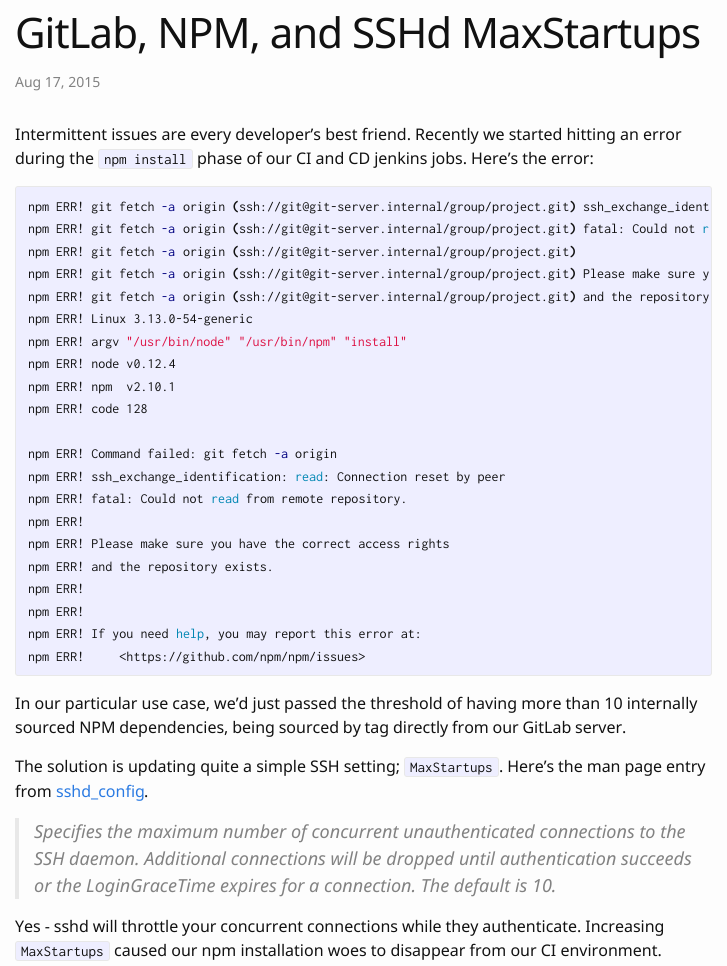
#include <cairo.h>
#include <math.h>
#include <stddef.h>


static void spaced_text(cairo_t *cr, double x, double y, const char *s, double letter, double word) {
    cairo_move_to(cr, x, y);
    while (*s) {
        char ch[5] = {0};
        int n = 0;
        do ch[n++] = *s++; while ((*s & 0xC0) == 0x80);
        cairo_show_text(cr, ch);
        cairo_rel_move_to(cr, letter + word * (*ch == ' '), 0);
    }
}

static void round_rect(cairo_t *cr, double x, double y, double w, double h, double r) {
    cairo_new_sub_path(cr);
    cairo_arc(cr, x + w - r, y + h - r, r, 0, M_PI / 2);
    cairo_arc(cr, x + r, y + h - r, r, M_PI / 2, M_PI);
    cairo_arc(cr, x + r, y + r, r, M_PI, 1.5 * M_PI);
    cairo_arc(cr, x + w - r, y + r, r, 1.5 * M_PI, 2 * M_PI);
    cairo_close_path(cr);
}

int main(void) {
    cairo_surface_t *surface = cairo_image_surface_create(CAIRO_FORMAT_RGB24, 727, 966);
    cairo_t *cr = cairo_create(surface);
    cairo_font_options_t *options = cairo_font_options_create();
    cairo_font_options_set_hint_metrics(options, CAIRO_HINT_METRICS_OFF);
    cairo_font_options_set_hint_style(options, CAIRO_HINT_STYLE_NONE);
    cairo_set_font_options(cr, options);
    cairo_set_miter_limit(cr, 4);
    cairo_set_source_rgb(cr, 0.992, 0.992, 0.992);
    cairo_paint(cr);
    cairo_select_font_face(cr, "Noto Sans", CAIRO_FONT_SLANT_NORMAL, CAIRO_FONT_WEIGHT_NORMAL);
    cairo_set_font_size(cr, 42);
    cairo_set_source_rgb(cr, 0.067, 0.067, 0.067);
    spaced_text(cr, 15, 48, "GitLab, NPM, and SSHd MaxStartups", -1, 0);
    cairo_set_font_size(cr, 14);
    cairo_set_source_rgb(cr, 0.51, 0.51, 0.51);
    cairo_move_to(cr, 15, 87);
    cairo_show_text(cr, "Aug 17, 2015");
    cairo_set_font_size(cr, 16);
    cairo_set_source_rgb(cr, 0.067, 0.067, 0.067);
    cairo_move_to(cr, 15, 140);
    cairo_show_text(cr, "Intermittent issues are every developer’s best friend. Recently we started hitting an error");
    cairo_move_to(cr, 15, 164);
    cairo_show_text(cr, "during the");
    cairo_set_source_rgb(cr, 0.933, 0.933, 1);
    round_rect(cr, 98.5, 149.5, 94, 19, 2.5);
    cairo_fill_preserve(cr);
    cairo_set_source_rgb(cr, 0.91, 0.91, 0.91);
    cairo_set_line_width(cr, 1);
    cairo_stroke(cr);
    cairo_select_font_face(cr, "Inconsolata", CAIRO_FONT_SLANT_NORMAL, CAIRO_FONT_WEIGHT_NORMAL);
    cairo_set_font_size(cr, 15);
    cairo_set_source_rgb(cr, 0.067, 0.067, 0.067);
    cairo_move_to(cr, 104, 164);
    cairo_show_text(cr, "npm install");
    cairo_select_font_face(cr, "Noto Sans", CAIRO_FONT_SLANT_NORMAL, CAIRO_FONT_WEIGHT_NORMAL);
    cairo_set_font_size(cr, 16);
    spaced_text(cr, 197, 164, "phase of our CI and CD jenkins jobs. Here’s the error:", 0, -0.1);
    cairo_set_source_rgb(cr, 0.933, 0.933, 1);
    round_rect(cr, 15.5, 186.5, 696, 489, 2.5);
    cairo_fill_preserve(cr);
    cairo_set_source_rgb(cr, 0.91, 0.91, 0.91);
    cairo_stroke(cr);
    cairo_select_font_face(cr, "Inconsolata", CAIRO_FONT_SLANT_NORMAL, CAIRO_FONT_WEIGHT_NORMAL);
    cairo_set_font_size(cr, 14.05);
    cairo_set_source_rgb(cr, 0.067, 0.067, 0.067);
    cairo_move_to(cr, 28, 211);
    cairo_show_text(cr, "npm ERR! git fetch");
    cairo_set_source_rgb(cr, 0, 0, 0.502);
    cairo_move_to(cr, 161, 211);
    cairo_show_text(cr, "-a");
    cairo_set_source_rgb(cr, 0.067, 0.067, 0.067);
    cairo_move_to(cr, 183, 211);
    cairo_show_text(cr, "origin");
    cairo_select_font_face(cr, "Inconsolata", CAIRO_FONT_SLANT_NORMAL, CAIRO_FONT_WEIGHT_BOLD);
    cairo_move_to(cr, 232, 211);
    cairo_show_text(cr, "(");
    cairo_select_font_face(cr, "Inconsolata", CAIRO_FONT_SLANT_NORMAL, CAIRO_FONT_WEIGHT_NORMAL);
    cairo_move_to(cr, 239, 211);
    cairo_show_text(cr, "ssh://git@git-server.internal/group/project.git");
    cairo_select_font_face(cr, "Inconsolata", CAIRO_FONT_SLANT_NORMAL, CAIRO_FONT_WEIGHT_BOLD);
    cairo_move_to(cr, 569, 211);
    cairo_show_text(cr, ")");
    cairo_select_font_face(cr, "Inconsolata", CAIRO_FONT_SLANT_NORMAL, CAIRO_FONT_WEIGHT_NORMAL);
    cairo_move_to(cr, 583, 211);
    cairo_show_text(cr, "ssh_exchange_ident");
    cairo_move_to(cr, 28, 233);
    cairo_show_text(cr, "npm ERR! git fetch");
    cairo_set_source_rgb(cr, 0, 0, 0.502);
    cairo_move_to(cr, 161, 233);
    cairo_show_text(cr, "-a");
    cairo_set_source_rgb(cr, 0.067, 0.067, 0.067);
    cairo_move_to(cr, 183, 233);
    cairo_show_text(cr, "origin");
    cairo_select_font_face(cr, "Inconsolata", CAIRO_FONT_SLANT_NORMAL, CAIRO_FONT_WEIGHT_BOLD);
    cairo_move_to(cr, 232, 233);
    cairo_show_text(cr, "(");
    cairo_select_font_face(cr, "Inconsolata", CAIRO_FONT_SLANT_NORMAL, CAIRO_FONT_WEIGHT_NORMAL);
    cairo_move_to(cr, 239, 233);
    cairo_show_text(cr, "ssh://git@git-server.internal/group/project.git");
    cairo_select_font_face(cr, "Inconsolata", CAIRO_FONT_SLANT_NORMAL, CAIRO_FONT_WEIGHT_BOLD);
    cairo_move_to(cr, 569, 233);
    cairo_show_text(cr, ")");
    cairo_select_font_face(cr, "Inconsolata", CAIRO_FONT_SLANT_NORMAL, CAIRO_FONT_WEIGHT_NORMAL);
    cairo_move_to(cr, 583, 233);
    cairo_show_text(cr, "fatal: Could not");
    cairo_set_source_rgb(cr, 0, 0.525, 0.702);
    cairo_move_to(cr, 702, 233);
    cairo_show_text(cr, "r");
    cairo_set_source_rgb(cr, 0.067, 0.067, 0.067);
    cairo_move_to(cr, 28, 256);
    cairo_show_text(cr, "npm ERR! git fetch");
    cairo_set_source_rgb(cr, 0, 0, 0.502);
    cairo_move_to(cr, 161, 256);
    cairo_show_text(cr, "-a");
    cairo_set_source_rgb(cr, 0.067, 0.067, 0.067);
    cairo_move_to(cr, 183, 256);
    cairo_show_text(cr, "origin");
    cairo_select_font_face(cr, "Inconsolata", CAIRO_FONT_SLANT_NORMAL, CAIRO_FONT_WEIGHT_BOLD);
    cairo_move_to(cr, 232, 256);
    cairo_show_text(cr, "(");
    cairo_select_font_face(cr, "Inconsolata", CAIRO_FONT_SLANT_NORMAL, CAIRO_FONT_WEIGHT_NORMAL);
    cairo_move_to(cr, 239, 256);
    cairo_show_text(cr, "ssh://git@git-server.internal/group/project.git");
    cairo_select_font_face(cr, "Inconsolata", CAIRO_FONT_SLANT_NORMAL, CAIRO_FONT_WEIGHT_BOLD);
    cairo_move_to(cr, 569, 256);
    cairo_show_text(cr, ")");
    cairo_select_font_face(cr, "Inconsolata", CAIRO_FONT_SLANT_NORMAL, CAIRO_FONT_WEIGHT_NORMAL);
    cairo_move_to(cr, 28, 278);
    cairo_show_text(cr, "npm ERR! git fetch");
    cairo_set_source_rgb(cr, 0, 0, 0.502);
    cairo_move_to(cr, 161, 278);
    cairo_show_text(cr, "-a");
    cairo_set_source_rgb(cr, 0.067, 0.067, 0.067);
    cairo_move_to(cr, 183, 278);
    cairo_show_text(cr, "origin");
    cairo_select_font_face(cr, "Inconsolata", CAIRO_FONT_SLANT_NORMAL, CAIRO_FONT_WEIGHT_BOLD);
    cairo_move_to(cr, 232, 278);
    cairo_show_text(cr, "(");
    cairo_select_font_face(cr, "Inconsolata", CAIRO_FONT_SLANT_NORMAL, CAIRO_FONT_WEIGHT_NORMAL);
    cairo_move_to(cr, 239, 278);
    cairo_show_text(cr, "ssh://git@git-server.internal/group/project.git");
    cairo_select_font_face(cr, "Inconsolata", CAIRO_FONT_SLANT_NORMAL, CAIRO_FONT_WEIGHT_BOLD);
    cairo_move_to(cr, 569, 278);
    cairo_show_text(cr, ")");
    cairo_select_font_face(cr, "Inconsolata", CAIRO_FONT_SLANT_NORMAL, CAIRO_FONT_WEIGHT_NORMAL);
    cairo_move_to(cr, 583, 278);
    cairo_show_text(cr, "Please make sure y");
    cairo_move_to(cr, 28, 301);
    cairo_show_text(cr, "npm ERR! git fetch");
    cairo_set_source_rgb(cr, 0, 0, 0.502);
    cairo_move_to(cr, 161, 301);
    cairo_show_text(cr, "-a");
    cairo_set_source_rgb(cr, 0.067, 0.067, 0.067);
    cairo_move_to(cr, 183, 301);
    cairo_show_text(cr, "origin");
    cairo_select_font_face(cr, "Inconsolata", CAIRO_FONT_SLANT_NORMAL, CAIRO_FONT_WEIGHT_BOLD);
    cairo_move_to(cr, 232, 301);
    cairo_show_text(cr, "(");
    cairo_select_font_face(cr, "Inconsolata", CAIRO_FONT_SLANT_NORMAL, CAIRO_FONT_WEIGHT_NORMAL);
    cairo_move_to(cr, 239, 301);
    cairo_show_text(cr, "ssh://git@git-server.internal/group/project.git");
    cairo_select_font_face(cr, "Inconsolata", CAIRO_FONT_SLANT_NORMAL, CAIRO_FONT_WEIGHT_BOLD);
    cairo_move_to(cr, 569, 301);
    cairo_show_text(cr, ")");
    cairo_select_font_face(cr, "Inconsolata", CAIRO_FONT_SLANT_NORMAL, CAIRO_FONT_WEIGHT_NORMAL);
    cairo_move_to(cr, 583, 301);
    cairo_show_text(cr, "and the repository");
    cairo_move_to(cr, 28, 323);
    cairo_show_text(cr, "npm ERR! Linux 3.13.0-54-generic");
    cairo_move_to(cr, 28, 346);
    cairo_show_text(cr, "npm ERR! argv");
    cairo_set_source_rgb(cr, 0.867, 0.067, 0.267);
    cairo_move_to(cr, 126, 346);
    cairo_show_text(cr, "\"/usr/bin/node\" \"/usr/bin/npm\" \"install\"");
    cairo_set_source_rgb(cr, 0.067, 0.067, 0.067);
    cairo_move_to(cr, 28, 368);
    cairo_show_text(cr, "npm ERR! node v0.12.4");
    cairo_move_to(cr, 28, 391);
    cairo_show_text(cr, "npm ERR! npm  v2.10.1");
    cairo_move_to(cr, 28, 413);
    cairo_show_text(cr, "npm ERR! code 128");
    cairo_move_to(cr, 28, 458);
    cairo_show_text(cr, "npm ERR! Command failed: git fetch");
    cairo_set_source_rgb(cr, 0, 0, 0.502);
    cairo_move_to(cr, 274, 458);
    cairo_show_text(cr, "-a");
    cairo_set_source_rgb(cr, 0.067, 0.067, 0.067);
    cairo_move_to(cr, 295, 458);
    cairo_show_text(cr, "origin");
    cairo_move_to(cr, 28, 481);
    cairo_show_text(cr, "npm ERR! ssh_exchange_identification:");
    cairo_set_source_rgb(cr, 0, 0.525, 0.702);
    cairo_move_to(cr, 295, 481);
    cairo_show_text(cr, "read");
    cairo_set_source_rgb(cr, 0.067, 0.067, 0.067);
    cairo_move_to(cr, 323, 481);
    cairo_show_text(cr, ": Connection reset by peer");
    cairo_move_to(cr, 28, 503);
    cairo_show_text(cr, "npm ERR! fatal: Could not");
    cairo_set_source_rgb(cr, 0, 0.525, 0.702);
    cairo_move_to(cr, 211, 503);
    cairo_show_text(cr, "read");
    cairo_set_source_rgb(cr, 0.067, 0.067, 0.067);
    cairo_move_to(cr, 246, 503);
    cairo_show_text(cr, "from remote repository.");
    cairo_move_to(cr, 28, 526);
    cairo_show_text(cr, "npm ERR!");
    cairo_move_to(cr, 28, 548);
    cairo_show_text(cr, "npm ERR! Please make sure you have the correct access rights");
    cairo_move_to(cr, 28, 571);
    cairo_show_text(cr, "npm ERR! and the repository exists.");
    cairo_move_to(cr, 28, 593);
    cairo_show_text(cr, "npm ERR!");
    cairo_move_to(cr, 28, 616);
    cairo_show_text(cr, "npm ERR!");
    cairo_move_to(cr, 28, 638);
    cairo_show_text(cr, "npm ERR! If you need");
    cairo_set_source_rgb(cr, 0, 0.525, 0.702);
    cairo_move_to(cr, 176, 638);
    cairo_show_text(cr, "help");
    cairo_set_source_rgb(cr, 0.067, 0.067, 0.067);
    cairo_move_to(cr, 204, 638);
    cairo_show_text(cr, ", you may report this error at:");
    cairo_move_to(cr, 28, 661);
    cairo_show_text(cr, "npm ERR!     <https://github.com/npm/npm/issues>");
    cairo_select_font_face(cr, "Noto Sans", CAIRO_FONT_SLANT_NORMAL, CAIRO_FONT_WEIGHT_NORMAL);
    cairo_set_font_size(cr, 16);
    cairo_move_to(cr, 15, 709);
    cairo_show_text(cr, "In our particular use case, we’d just passed the threshold of having more than 10 internally");
    spaced_text(cr, 15, 733, "sourced NPM dependencies, being sourced by tag directly from our GitLab server.", 0, -0.4);
    cairo_move_to(cr, 15, 772);
    cairo_show_text(cr, "The solution is updating quite a simple SSH setting;");
    cairo_set_source_rgb(cr, 0.933, 0.933, 1);
    round_rect(cr, 404.5, 757.5, 94, 19, 2.5);
    cairo_fill_preserve(cr);
    cairo_set_source_rgb(cr, 0.91, 0.91, 0.91);
    cairo_stroke(cr);
    cairo_select_font_face(cr, "Inconsolata", CAIRO_FONT_SLANT_NORMAL, CAIRO_FONT_WEIGHT_NORMAL);
    cairo_set_font_size(cr, 15);
    cairo_set_source_rgb(cr, 0.067, 0.067, 0.067);
    cairo_move_to(cr, 410, 772);
    cairo_show_text(cr, "MaxStartups");
    cairo_select_font_face(cr, "Noto Sans", CAIRO_FONT_SLANT_NORMAL, CAIRO_FONT_WEIGHT_NORMAL);
    cairo_set_font_size(cr, 16);
    spaced_text(cr, 499, 772, ". Here’s the man page entry", 0, -0.25);
    cairo_move_to(cr, 15, 797);
    cairo_show_text(cr, "from");
    cairo_set_source_rgb(cr, 0.165, 0.478, 0.886);
    cairo_move_to(cr, 56, 797);
    cairo_show_text(cr, "sshd_config");
    cairo_set_source_rgb(cr, 0.067, 0.067, 0.067);
    cairo_move_to(cr, 144, 797);
    cairo_show_text(cr, ".");
    cairo_set_source_rgb(cr, 0.91, 0.91, 0.91);
    cairo_rectangle(cr, 15, 818, 4, 81);
    cairo_fill(cr);
    cairo_select_font_face(cr, "Noto Sans", CAIRO_FONT_SLANT_ITALIC, CAIRO_FONT_WEIGHT_NORMAL);
    cairo_set_font_size(cr, 18);
    cairo_set_source_rgb(cr, 0.51, 0.51, 0.51);
    cairo_move_to(cr, 34, 838);
    cairo_show_text(cr, "Specifies the maximum number of concurrent unauthenticated connections to the");
    cairo_move_to(cr, 34, 865);
    cairo_show_text(cr, "SSH daemon. Additional connections will be dropped until authentication succeeds");
    cairo_move_to(cr, 34, 892);
    cairo_show_text(cr, "or the LoginGraceTime expires for a connection. The default is 10.");
    cairo_select_font_face(cr, "Noto Sans", CAIRO_FONT_SLANT_NORMAL, CAIRO_FONT_WEIGHT_NORMAL);
    cairo_set_font_size(cr, 16);
    cairo_set_source_rgb(cr, 0.067, 0.067, 0.067);
    spaced_text(cr, 15, 932, "Yes - sshd will throttle your concurrent connections while they authenticate. Increasing", 0, -0.25);
    cairo_set_source_rgb(cr, 0.933, 0.933, 1);
    round_rect(cr, 15.5, 941.5, 94, 19, 2.5);
    cairo_fill_preserve(cr);
    cairo_set_source_rgb(cr, 0.91, 0.91, 0.91);
    cairo_stroke(cr);
    cairo_select_font_face(cr, "Inconsolata", CAIRO_FONT_SLANT_NORMAL, CAIRO_FONT_WEIGHT_NORMAL);
    cairo_set_font_size(cr, 15);
    cairo_set_source_rgb(cr, 0.067, 0.067, 0.067);
    cairo_move_to(cr, 21, 956);
    cairo_show_text(cr, "MaxStartups");
    cairo_select_font_face(cr, "Noto Sans", CAIRO_FONT_SLANT_NORMAL, CAIRO_FONT_WEIGHT_NORMAL);
    cairo_set_font_size(cr, 16);
    cairo_move_to(cr, 114, 956);
    cairo_show_text(cr, "caused our npm installation woes to disappear from our CI environment.");
    cairo_surface_write_to_png(surface, "page.png");
    cairo_font_options_destroy(options);
    cairo_destroy(cr);
    cairo_surface_destroy(surface);
    return 0;
}
